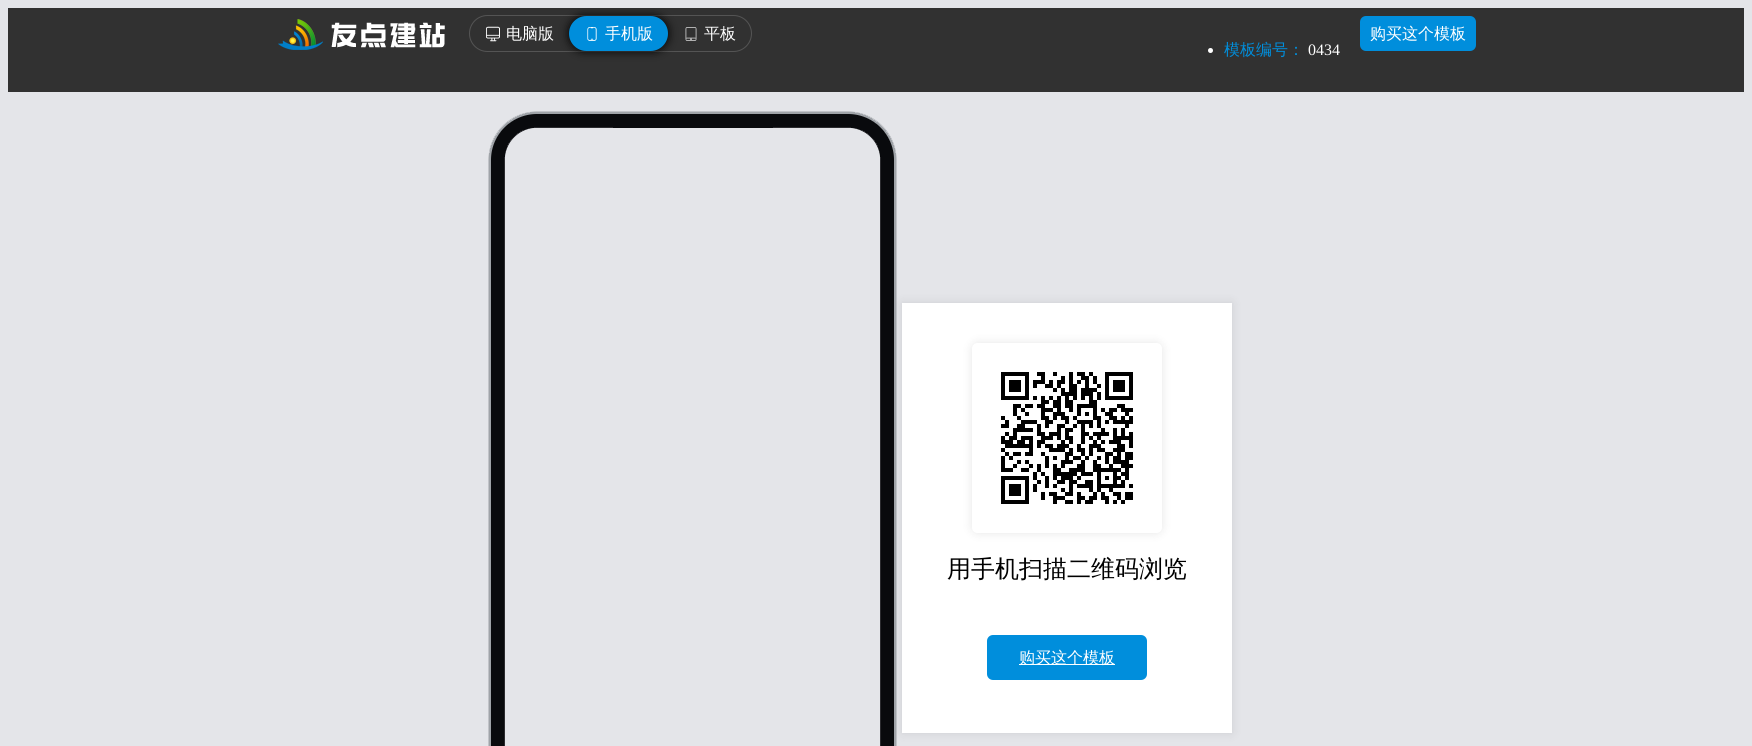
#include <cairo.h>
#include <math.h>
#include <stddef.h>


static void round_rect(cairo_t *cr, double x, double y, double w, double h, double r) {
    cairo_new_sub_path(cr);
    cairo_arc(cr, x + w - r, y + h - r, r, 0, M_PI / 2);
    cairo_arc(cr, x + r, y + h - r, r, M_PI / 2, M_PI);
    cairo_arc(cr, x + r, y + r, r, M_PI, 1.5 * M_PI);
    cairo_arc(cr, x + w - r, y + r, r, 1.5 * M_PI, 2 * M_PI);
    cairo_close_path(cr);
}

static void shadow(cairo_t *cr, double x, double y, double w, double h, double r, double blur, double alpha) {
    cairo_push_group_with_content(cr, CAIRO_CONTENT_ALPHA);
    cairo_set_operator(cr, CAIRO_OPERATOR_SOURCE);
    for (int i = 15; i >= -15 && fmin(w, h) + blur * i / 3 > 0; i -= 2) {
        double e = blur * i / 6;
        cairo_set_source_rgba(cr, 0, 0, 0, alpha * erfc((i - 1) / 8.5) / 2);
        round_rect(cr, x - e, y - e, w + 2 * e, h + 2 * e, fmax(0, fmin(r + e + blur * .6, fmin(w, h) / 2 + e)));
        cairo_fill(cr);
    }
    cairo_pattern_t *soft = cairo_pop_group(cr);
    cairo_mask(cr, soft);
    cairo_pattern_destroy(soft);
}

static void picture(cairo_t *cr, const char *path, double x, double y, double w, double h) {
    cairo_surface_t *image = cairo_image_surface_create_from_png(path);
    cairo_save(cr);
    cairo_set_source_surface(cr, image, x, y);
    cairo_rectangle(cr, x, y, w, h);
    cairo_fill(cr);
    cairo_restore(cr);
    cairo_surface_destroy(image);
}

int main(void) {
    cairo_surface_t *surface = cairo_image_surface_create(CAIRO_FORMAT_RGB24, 1752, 746);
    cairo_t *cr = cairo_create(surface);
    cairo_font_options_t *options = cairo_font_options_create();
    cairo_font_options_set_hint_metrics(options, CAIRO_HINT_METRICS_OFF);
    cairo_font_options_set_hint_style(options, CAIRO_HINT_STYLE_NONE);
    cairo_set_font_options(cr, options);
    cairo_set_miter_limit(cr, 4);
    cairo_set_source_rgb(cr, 0.894, 0.898, 0.914);
    cairo_paint(cr);
    cairo_set_source_rgb(cr, 0.192, 0.192, 0.192);
    cairo_rectangle(cr, 8, 8, 1736, 84);
    cairo_fill(cr);
    picture(cr, "img1.png", 278, 19, 167, 31);
    round_rect(cr, 469.5, 15.5, 282, 36, 18);
    cairo_set_source_rgb(cr, 0.329, 0.329, 0.329);
    cairo_set_line_width(cr, 1);
    cairo_stroke(cr);
    picture(cr, "img2.png", 486, 26, 14, 16);
    cairo_select_font_face(cr, "WenQuanYi Zen Hei Medium", CAIRO_FONT_SLANT_NORMAL, CAIRO_FONT_WEIGHT_NORMAL);
    cairo_set_font_size(cr, 16);
    cairo_set_source_rgb(cr, 1, 1, 1);
    cairo_move_to(cr, 506, 39);
    cairo_show_text(cr, "电脑版");
    cairo_save(cr);
    cairo_rectangle(cr, 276, 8, 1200, 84);
    cairo_clip(cr);
    cairo_set_source_rgb(cr, 0, 0, 0);
    shadow(cr, 569, 16, 99, 35, 17.5, 5, 1);
    cairo_restore(cr);
    cairo_set_source_rgb(cr, 0, 0.557, 0.863);
    round_rect(cr, 569, 16, 99, 35, 17.5);
    cairo_fill(cr);
    picture(cr, "img3.png", 587, 27, 10, 14);
    cairo_set_source_rgb(cr, 1, 1, 1);
    cairo_move_to(cr, 605, 39);
    cairo_show_text(cr, "手机版");
    picture(cr, "img4.png", 685, 27, 12, 14);
    cairo_move_to(cr, 704, 39);
    cairo_show_text(cr, "平板");
    cairo_set_source_rgb(cr, 0, 0.557, 0.863);
    round_rect(cr, 1360, 16, 116, 35, 6);
    cairo_fill(cr);
    cairo_set_source_rgb(cr, 1, 1, 1);
    cairo_move_to(cr, 1370, 39);
    cairo_show_text(cr, "购买这个模板");
    cairo_new_path(cr);
    cairo_arc(cr, 1210.5, 50.5, 2.5, 0, 2 * M_PI);
    cairo_fill(cr);
    cairo_set_source_rgb(cr, 0, 0.557, 0.863);
    cairo_move_to(cr, 1224, 55);
    cairo_show_text(cr, "模板编号：");
    cairo_select_font_face(cr, "Liberation Serif", CAIRO_FONT_SLANT_NORMAL, CAIRO_FONT_WEIGHT_NORMAL);
    cairo_set_source_rgb(cr, 1, 1, 1);
    cairo_move_to(cr, 1308, 55);
    cairo_show_text(cr, "0434");
    cairo_set_source_rgb(cr, 0, 0, 0);
    shadow(cr, 902, 303, 330, 430, 0, 5, 0.1);
    picture(cr, "img5.png", 488, 111, 409, 635);
    cairo_set_source_rgb(cr, 1, 1, 1);
    cairo_rectangle(cr, 902, 303, 330, 430);
    cairo_fill(cr);
    cairo_save(cr);
    cairo_set_fill_rule(cr, CAIRO_FILL_RULE_EVEN_ODD);
    cairo_new_path(cr);
    cairo_move_to(cr, 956, 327);
    cairo_line_to(cr, 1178, 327);
    cairo_line_to(cr, 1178, 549);
    cairo_line_to(cr, 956, 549);
    cairo_close_path(cr);
    cairo_move_to(cr, 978, 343);
    cairo_line_to(cr, 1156, 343);
    cairo_curve_to(cr, 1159.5, 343, 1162, 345.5, 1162, 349);
    cairo_line_to(cr, 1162, 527);
    cairo_curve_to(cr, 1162, 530.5, 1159.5, 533, 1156, 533);
    cairo_line_to(cr, 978, 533);
    cairo_curve_to(cr, 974.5, 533, 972, 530.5, 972, 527);
    cairo_line_to(cr, 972, 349);
    cairo_curve_to(cr, 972, 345.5, 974.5, 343, 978, 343);
    cairo_close_path(cr);
    cairo_clip(cr);
    cairo_set_source_rgb(cr, 0, 0, 0);
    shadow(cr, 972, 343, 190, 190, 6, 5, 0.1);
    cairo_restore(cr);
    picture(cr, "img6.png", 1001, 372, 132, 132);
    cairo_select_font_face(cr, "WenQuanYi Zen Hei Medium", CAIRO_FONT_SLANT_NORMAL, CAIRO_FONT_WEIGHT_NORMAL);
    cairo_set_font_size(cr, 24);
    cairo_set_source_rgb(cr, 0, 0, 0);
    cairo_move_to(cr, 947, 577);
    cairo_show_text(cr, "用手机扫描二维码浏览");
    cairo_set_source_rgb(cr, 0, 0.557, 0.863);
    round_rect(cr, 987, 635, 160, 45, 6);
    cairo_fill(cr);
    cairo_set_source_rgb(cr, 1, 1, 1);
    cairo_rectangle(cr, 1019, 664, 96, 1);
    cairo_fill(cr);
    cairo_set_font_size(cr, 16);
    cairo_move_to(cr, 1019, 663);
    cairo_show_text(cr, "购买这个模板");
    cairo_surface_write_to_png(surface, "page.png");
    cairo_font_options_destroy(options);
    cairo_destroy(cr);
    cairo_surface_destroy(surface);
    return 0;
}
